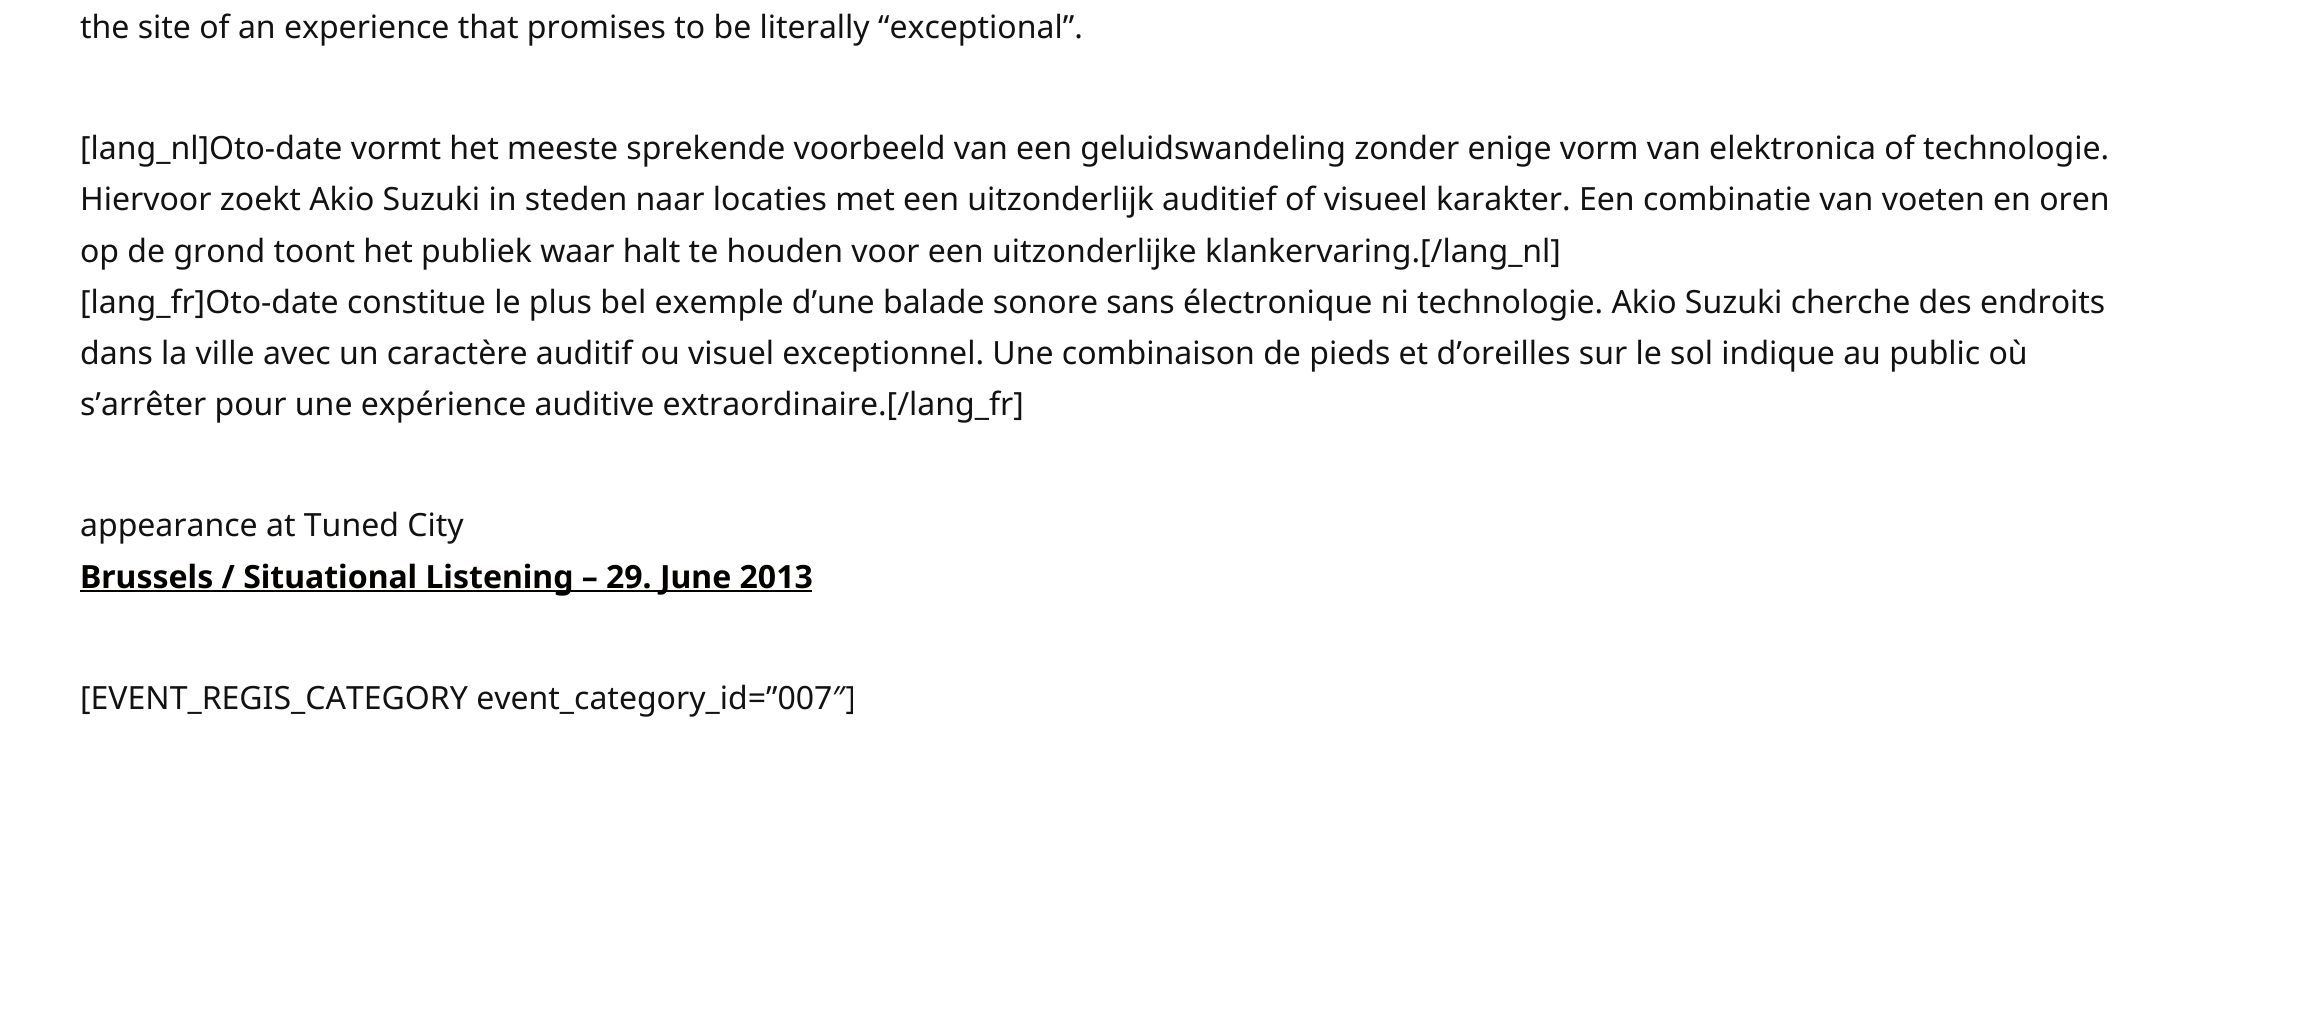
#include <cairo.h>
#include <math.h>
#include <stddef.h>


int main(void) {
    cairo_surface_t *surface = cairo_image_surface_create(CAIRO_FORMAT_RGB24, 2302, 1022);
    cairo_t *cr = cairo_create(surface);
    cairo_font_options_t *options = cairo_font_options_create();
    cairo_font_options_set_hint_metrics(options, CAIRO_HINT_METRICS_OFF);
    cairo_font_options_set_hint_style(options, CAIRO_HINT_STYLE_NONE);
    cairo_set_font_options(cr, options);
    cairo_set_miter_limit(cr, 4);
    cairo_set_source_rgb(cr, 1, 1, 1);
    cairo_paint(cr);
    cairo_select_font_face(cr, "Noto Sans", CAIRO_FONT_SLANT_NORMAL, CAIRO_FONT_WEIGHT_NORMAL);
    cairo_set_font_size(cr, 32);
    cairo_set_source_rgb(cr, 0.071, 0.071, 0.071);
    cairo_move_to(cr, 80, 38);
    cairo_show_text(cr, "the site of an experience that promises to be literally “exceptional”.");
    cairo_move_to(cr, 80, 159);
    cairo_show_text(cr, "[lang_nl]Oto-date vormt het meeste sprekende voorbeeld van een geluidswandeling zonder enige vorm van elektronica of technologie.");
    cairo_move_to(cr, 80, 210);
    cairo_show_text(cr, "Hiervoor zoekt Akio Suzuki in steden naar locaties met een uitzonderlijk auditief of visueel karakter. Een combinatie van voeten en oren");
    cairo_move_to(cr, 80, 262);
    cairo_show_text(cr, "op de grond toont het publiek waar halt te houden voor een uitzonderlijke klankervaring.[/lang_nl]");
    cairo_move_to(cr, 80, 313);
    cairo_show_text(cr, "[lang_fr]Oto-date constitue le plus bel exemple d’une balade sonore sans électronique ni technologie. Akio Suzuki cherche des endroits");
    cairo_move_to(cr, 80, 364);
    cairo_show_text(cr, "dans la ville avec un caractère auditif ou visuel exceptionnel. Une combinaison de pieds et d’oreilles sur le sol indique au public où");
    cairo_move_to(cr, 80, 415);
    cairo_show_text(cr, "s’arrêter pour une expérience auditive extraordinaire.[/lang_fr]");
    cairo_move_to(cr, 80, 536);
    cairo_show_text(cr, "appearance at Tuned City");
    cairo_set_source_rgb(cr, 0.016, 0.004, 0.004);
    cairo_rectangle(cr, 80, 590, 732, 2);
    cairo_fill(cr);
    cairo_select_font_face(cr, "Noto Sans", CAIRO_FONT_SLANT_NORMAL, CAIRO_FONT_WEIGHT_BOLD);
    cairo_move_to(cr, 80, 588);
    cairo_show_text(cr, "Brussels / Situational Listening – 29. June 2013");
    cairo_select_font_face(cr, "Noto Sans", CAIRO_FONT_SLANT_NORMAL, CAIRO_FONT_WEIGHT_NORMAL);
    cairo_set_source_rgb(cr, 0.071, 0.071, 0.071);
    cairo_move_to(cr, 80, 709);
    cairo_show_text(cr, "[EVENT_REGIS_CATEGORY event_category_id=”007″]");
    cairo_surface_write_to_png(surface, "page.png");
    cairo_font_options_destroy(options);
    cairo_destroy(cr);
    cairo_surface_destroy(surface);
    return 0;
}
